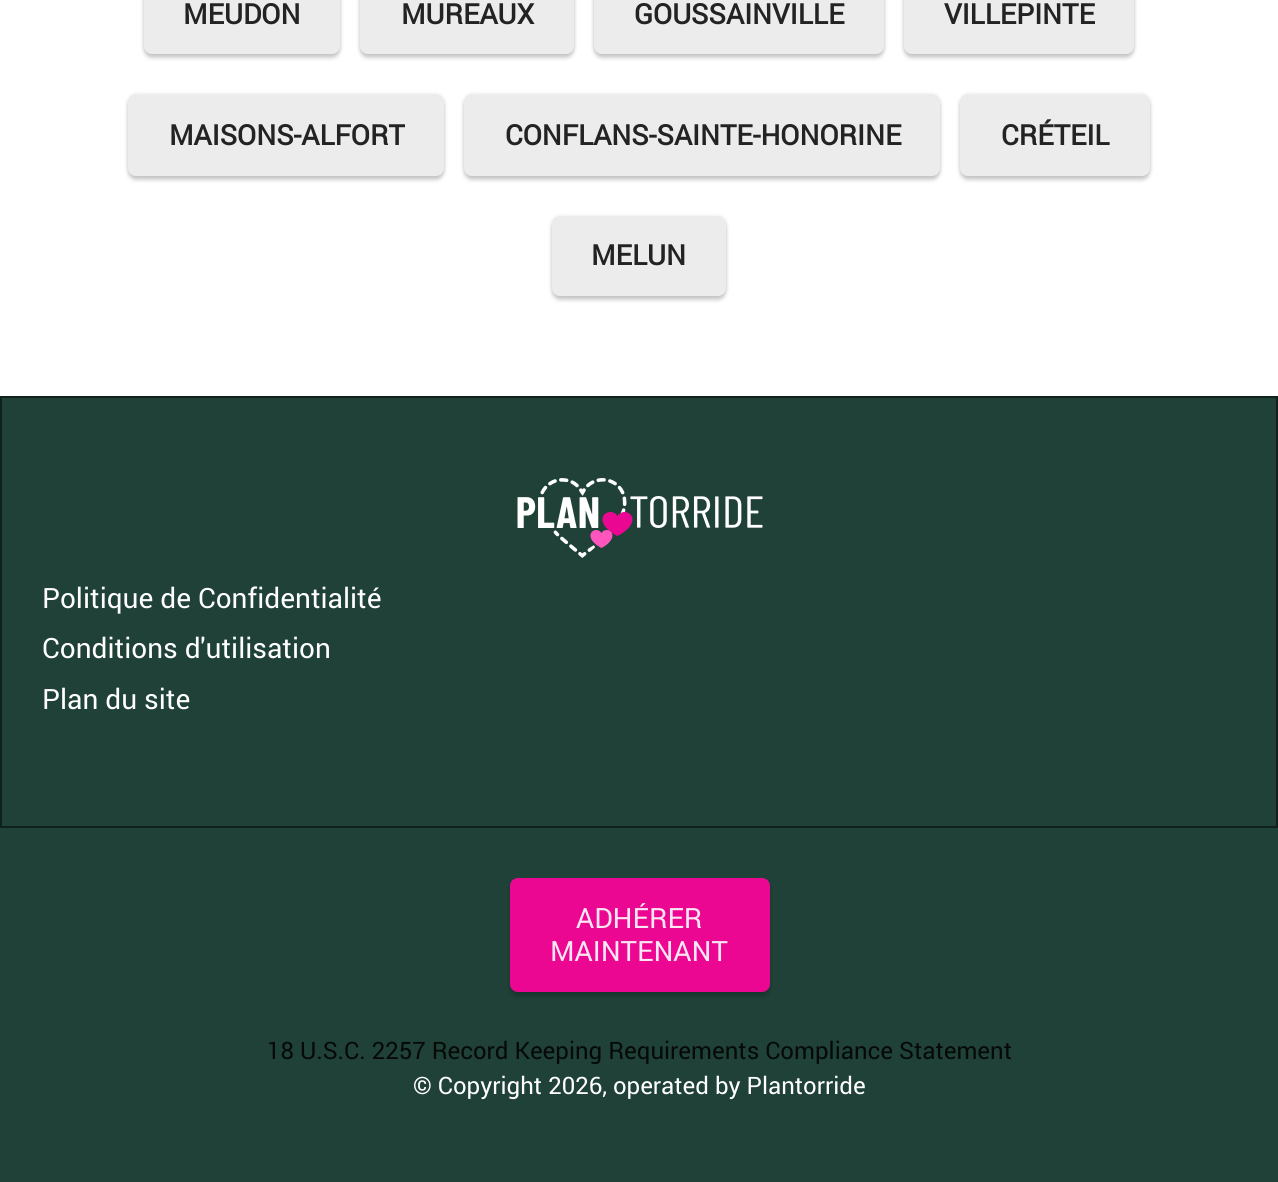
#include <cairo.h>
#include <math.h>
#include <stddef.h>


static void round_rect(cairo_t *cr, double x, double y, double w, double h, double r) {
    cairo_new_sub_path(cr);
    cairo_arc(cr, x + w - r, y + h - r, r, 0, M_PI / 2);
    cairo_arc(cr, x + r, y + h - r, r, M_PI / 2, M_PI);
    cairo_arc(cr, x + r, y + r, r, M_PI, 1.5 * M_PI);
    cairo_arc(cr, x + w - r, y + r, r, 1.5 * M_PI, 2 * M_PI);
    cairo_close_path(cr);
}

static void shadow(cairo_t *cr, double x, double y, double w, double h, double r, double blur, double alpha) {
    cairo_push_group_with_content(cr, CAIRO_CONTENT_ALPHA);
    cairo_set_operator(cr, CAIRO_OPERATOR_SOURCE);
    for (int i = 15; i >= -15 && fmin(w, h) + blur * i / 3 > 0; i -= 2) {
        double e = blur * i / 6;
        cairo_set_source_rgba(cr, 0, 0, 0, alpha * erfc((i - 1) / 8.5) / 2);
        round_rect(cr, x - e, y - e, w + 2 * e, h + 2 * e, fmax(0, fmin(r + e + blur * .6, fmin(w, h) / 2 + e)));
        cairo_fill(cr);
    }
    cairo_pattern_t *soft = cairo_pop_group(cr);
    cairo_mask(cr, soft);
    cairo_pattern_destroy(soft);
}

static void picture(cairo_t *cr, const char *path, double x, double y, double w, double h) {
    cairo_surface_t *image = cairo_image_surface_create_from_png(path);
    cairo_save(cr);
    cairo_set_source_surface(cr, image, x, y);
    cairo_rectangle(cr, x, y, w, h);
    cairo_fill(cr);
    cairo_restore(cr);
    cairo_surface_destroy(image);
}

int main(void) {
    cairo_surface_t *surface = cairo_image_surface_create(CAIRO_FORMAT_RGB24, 1278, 1182);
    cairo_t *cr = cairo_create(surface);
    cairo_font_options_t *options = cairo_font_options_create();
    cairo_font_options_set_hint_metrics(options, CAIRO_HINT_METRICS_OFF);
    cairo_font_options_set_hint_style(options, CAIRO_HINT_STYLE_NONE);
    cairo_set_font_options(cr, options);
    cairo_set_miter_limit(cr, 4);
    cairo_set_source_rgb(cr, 1, 1, 1);
    cairo_paint(cr);
    cairo_set_source_rgb(cr, 0, 0, 0);
    shadow(cr, 144, -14, 196, 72, 8, 2, 0.2);
    shadow(cr, 144, -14, 196, 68, 8, 2, 0.1);
    cairo_set_source_rgb(cr, 0.922, 0.922, 0.922);
    round_rect(cr, 144, -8, 196, 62, 8);
    cairo_fill(cr);
    cairo_select_font_face(cr, "Roboto", CAIRO_FONT_SLANT_NORMAL, CAIRO_FONT_WEIGHT_BOLD);
    cairo_set_font_size(cr, 28);
    cairo_set_source_rgb(cr, 0.137, 0.137, 0.137);
    cairo_move_to(cr, 183, 24);
    cairo_show_text(cr, "MEUDON");
    cairo_set_source_rgb(cr, 0, 0, 0);
    shadow(cr, 360, -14, 214, 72, 8, 2, 0.2);
    shadow(cr, 360, -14, 214, 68, 8, 2, 0.1);
    cairo_set_source_rgb(cr, 0.922, 0.922, 0.922);
    round_rect(cr, 360, -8, 214, 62, 8);
    cairo_fill(cr);
    cairo_set_source_rgb(cr, 0.137, 0.137, 0.137);
    cairo_move_to(cr, 401, 24);
    cairo_show_text(cr, "MUREAUX");
    cairo_set_source_rgb(cr, 0, 0, 0);
    shadow(cr, 594, -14, 290, 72, 8, 2, 0.2);
    shadow(cr, 594, -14, 290, 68, 8, 2, 0.1);
    cairo_set_source_rgb(cr, 0.922, 0.922, 0.922);
    round_rect(cr, 594, -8, 290, 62, 8);
    cairo_fill(cr);
    cairo_set_source_rgb(cr, 0.137, 0.137, 0.137);
    cairo_move_to(cr, 634, 24);
    cairo_show_text(cr, "GOUSSAINVILLE");
    cairo_set_source_rgb(cr, 0, 0, 0);
    shadow(cr, 904, -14, 230, 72, 8, 2, 0.2);
    shadow(cr, 904, -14, 230, 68, 8, 2, 0.1);
    cairo_set_source_rgb(cr, 0.922, 0.922, 0.922);
    round_rect(cr, 904, -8, 230, 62, 8);
    cairo_fill(cr);
    cairo_set_source_rgb(cr, 0.137, 0.137, 0.137);
    cairo_move_to(cr, 944, 24);
    cairo_show_text(cr, "VILLEPINTE");
    cairo_set_source_rgb(cr, 0, 0, 0);
    shadow(cr, 128, 98, 316, 82, 8, 2, 0.2);
    shadow(cr, 128, 94, 316, 82, 8, 2, 0.1);
    cairo_set_source_rgb(cr, 0.922, 0.922, 0.922);
    round_rect(cr, 128, 94, 316, 82, 8);
    cairo_fill(cr);
    cairo_set_source_rgb(cr, 0.137, 0.137, 0.137);
    cairo_move_to(cr, 169, 145);
    cairo_show_text(cr, "MAISONS-ALFORT");
    cairo_set_source_rgb(cr, 0, 0, 0);
    shadow(cr, 464, 98, 476, 82, 8, 2, 0.2);
    shadow(cr, 464, 94, 476, 82, 8, 2, 0.1);
    cairo_set_source_rgb(cr, 0.922, 0.922, 0.922);
    round_rect(cr, 464, 94, 476, 82, 8);
    cairo_fill(cr);
    cairo_set_source_rgb(cr, 0.137, 0.137, 0.137);
    cairo_move_to(cr, 505, 145);
    cairo_show_text(cr, "CONFLANS-SAINTE-HONORINE");
    cairo_set_source_rgb(cr, 0, 0, 0);
    shadow(cr, 960, 98, 190, 82, 8, 2, 0.2);
    shadow(cr, 960, 94, 190, 82, 8, 2, 0.1);
    cairo_set_source_rgb(cr, 0.922, 0.922, 0.922);
    round_rect(cr, 960, 94, 190, 82, 8);
    cairo_fill(cr);
    cairo_set_source_rgb(cr, 0.137, 0.137, 0.137);
    cairo_move_to(cr, 1001, 145);
    cairo_show_text(cr, "CRÉTEIL");
    cairo_set_source_rgb(cr, 0, 0, 0);
    shadow(cr, 552, 220, 174, 80, 8, 2, 0.2);
    shadow(cr, 552, 216, 174, 80, 8, 2, 0.1);
    cairo_set_source_rgb(cr, 0.922, 0.922, 0.922);
    round_rect(cr, 552, 216, 174, 80, 8);
    cairo_fill(cr);
    cairo_set_source_rgb(cr, 0.137, 0.137, 0.137);
    cairo_move_to(cr, 591, 265);
    cairo_show_text(cr, "MELUN");
    cairo_set_source_rgb(cr, 0.122, 0.255, 0.216);
    cairo_rectangle(cr, 1, 397, 1276, 430);
    cairo_fill_preserve(cr);
    cairo_set_source_rgb(cr, 0.063, 0.129, 0.11);
    cairo_stroke(cr);
    picture(cr, "img1.png", 517, 478, 246, 80);
    cairo_select_font_face(cr, "Roboto", CAIRO_FONT_SLANT_NORMAL, CAIRO_FONT_WEIGHT_NORMAL);
    cairo_set_source_rgb(cr, 1, 1, 1);
    cairo_move_to(cr, 42, 608);
    cairo_show_text(cr, "Politique de Confidentialité");
    cairo_move_to(cr, 42, 658);
    cairo_show_text(cr, "Conditions d'utilisation");
    cairo_move_to(cr, 42, 709);
    cairo_show_text(cr, "Plan du site");
    cairo_set_source_rgb(cr, 0.122, 0.255, 0.216);
    cairo_rectangle(cr, 0, 828, 1278, 354);
    cairo_fill(cr);
    cairo_set_source_rgb(cr, 0, 0, 0);
    shadow(cr, 510, 882, 260, 114, 8, 2, 0.2);
    cairo_set_source_rgb(cr, 0.918, 0.031, 0.573);
    round_rect(cr, 510, 878, 260, 114, 8);
    cairo_fill(cr);
    cairo_set_source_rgb(cr, 0.992, 0.902, 0.957);
    cairo_move_to(cr, 576, 928);
    cairo_show_text(cr, "ADHÉRER");
    cairo_move_to(cr, 550, 961);
    cairo_show_text(cr, "MAINTENANT");
    cairo_set_font_size(cr, 24);
    cairo_set_source_rgb(cr, 0.02, 0.039, 0.031);
    cairo_move_to(cr, 267, 1059);
    cairo_show_text(cr, "18 U.S.C. 2257 Record Keeping Requirements Compliance Statement");
    cairo_set_source_rgb(cr, 1, 1, 1);
    cairo_move_to(cr, 413, 1094);
    cairo_show_text(cr, "© Copyright 2026, operated by Plantorride");
    cairo_surface_write_to_png(surface, "page.png");
    cairo_font_options_destroy(options);
    cairo_destroy(cr);
    cairo_surface_destroy(surface);
    return 0;
}
